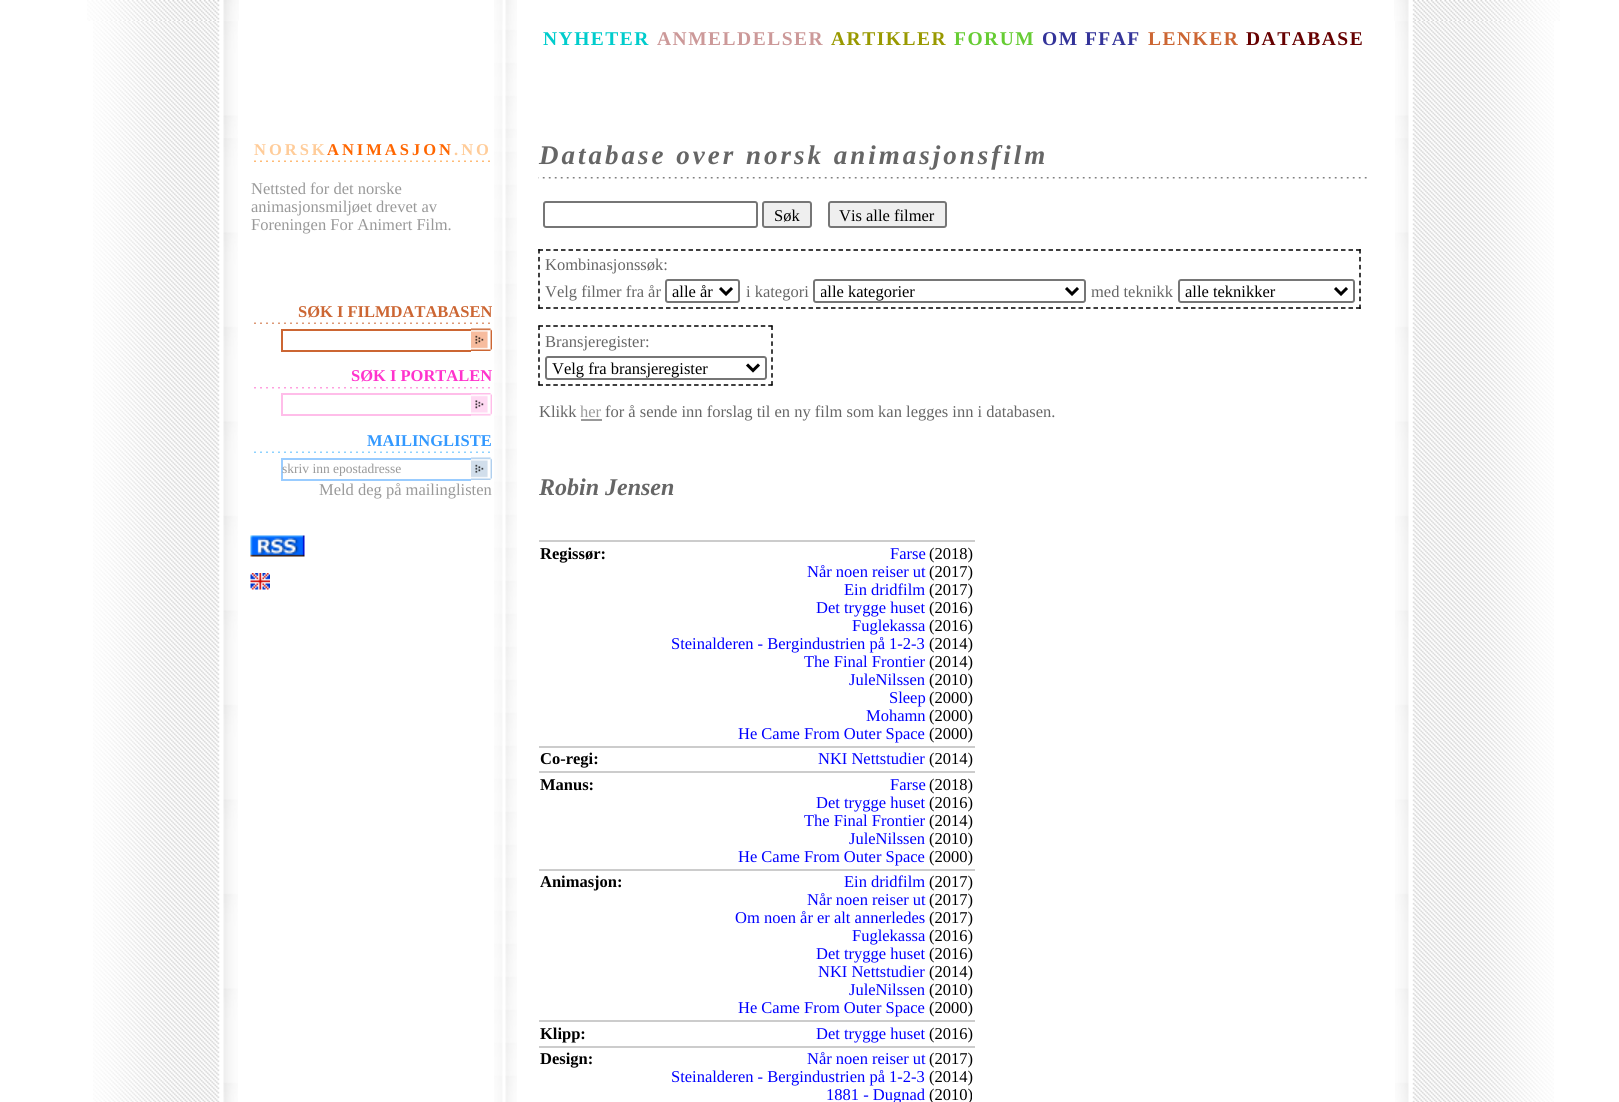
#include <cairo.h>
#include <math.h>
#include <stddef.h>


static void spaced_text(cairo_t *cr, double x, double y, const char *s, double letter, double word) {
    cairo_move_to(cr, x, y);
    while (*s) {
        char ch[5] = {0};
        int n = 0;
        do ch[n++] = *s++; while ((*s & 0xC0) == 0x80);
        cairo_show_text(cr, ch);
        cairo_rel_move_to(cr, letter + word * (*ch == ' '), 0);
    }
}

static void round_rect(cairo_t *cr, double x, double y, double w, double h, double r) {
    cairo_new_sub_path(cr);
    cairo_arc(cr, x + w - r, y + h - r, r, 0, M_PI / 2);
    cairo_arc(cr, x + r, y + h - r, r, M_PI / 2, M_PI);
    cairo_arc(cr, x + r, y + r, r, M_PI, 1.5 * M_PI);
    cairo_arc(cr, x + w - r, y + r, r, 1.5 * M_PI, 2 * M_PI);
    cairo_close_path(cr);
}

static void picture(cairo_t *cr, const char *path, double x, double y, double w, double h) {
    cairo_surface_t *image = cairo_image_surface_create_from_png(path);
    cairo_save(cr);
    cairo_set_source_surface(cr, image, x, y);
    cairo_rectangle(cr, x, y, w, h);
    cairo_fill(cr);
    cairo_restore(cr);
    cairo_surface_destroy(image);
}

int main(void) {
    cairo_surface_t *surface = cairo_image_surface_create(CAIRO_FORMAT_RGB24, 1619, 1102);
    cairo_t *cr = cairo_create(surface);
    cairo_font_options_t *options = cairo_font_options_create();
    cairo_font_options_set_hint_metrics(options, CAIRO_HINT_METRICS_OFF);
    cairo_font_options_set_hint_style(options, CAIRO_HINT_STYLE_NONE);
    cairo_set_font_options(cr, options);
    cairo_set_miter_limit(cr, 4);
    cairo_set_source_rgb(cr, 1, 1, 1);
    cairo_paint(cr);
    picture(cr, "img1.png", 87, 0, 152, 21);
    picture(cr, "img2.png", 494, 0, 23, 21);
    picture(cr, "img3.png", 1394, 0, 166, 21);
    picture(cr, "img4.png", 93, 21, 145, 117);
    picture(cr, "img5.png", 494, 21, 23, 117);
    cairo_select_font_face(cr, "Liberation Serif", CAIRO_FONT_SLANT_NORMAL, CAIRO_FONT_WEIGHT_BOLD);
    cairo_set_font_size(cr, 19.5);
    cairo_set_source_rgb(cr, 0, 0.8, 0.8);
    spaced_text(cr, 543, 45, "NYHETER", 1.5, 0);
    cairo_set_source_rgb(cr, 0.8, 0.6, 0.6);
    spaced_text(cr, 657, 45, "ANMELDELSER", 1.5, 0);
    cairo_set_source_rgb(cr, 0.6, 0.6, 0);
    spaced_text(cr, 831, 45, "ARTIKLER", 1.5, 0);
    cairo_set_source_rgb(cr, 0.4, 0.8, 0.2);
    spaced_text(cr, 954, 45, "FORUM", 1.5, 0);
    cairo_set_source_rgb(cr, 0.2, 0.2, 0.6);
    spaced_text(cr, 1042, 45, "OM FFAF", 1.5, 0);
    cairo_set_source_rgb(cr, 0.8, 0.4, 0.2);
    spaced_text(cr, 1148, 45, "LENKER", 1.5, 0);
    cairo_set_source_rgb(cr, 0.4, 0, 0);
    spaced_text(cr, 1246, 45, "DATABASE", 1.5, 0);
    picture(cr, "img6.png", 1395, 21, 159, 117);
    picture(cr, "img7.png", 93, 138, 145, 964);
    picture(cr, "img8.png", 494, 138, 23, 964);
    picture(cr, "img9.png", 254, 160, 236, 2);
    cairo_set_font_size(cr, 16.5);
    cairo_set_source_rgb(cr, 1, 0.8, 0.6);
    spaced_text(cr, 254, 155, "NORSK", 3, 0);
    cairo_set_source_rgb(cr, 1, 0.4, 0);
    spaced_text(cr, 327, 155, "ANIMASJON", 3, 0);
    cairo_set_source_rgb(cr, 1, 0.8, 0.6);
    spaced_text(cr, 454, 155, ".NO", 3, 0);
    cairo_select_font_face(cr, "Liberation Serif", CAIRO_FONT_SLANT_NORMAL, CAIRO_FONT_WEIGHT_NORMAL);
    cairo_set_source_rgb(cr, 0.6, 0.6, 0.6);
    cairo_move_to(cr, 251, 194);
    cairo_show_text(cr, "Nettsted for det norske");
    cairo_move_to(cr, 251, 212);
    cairo_show_text(cr, "animasjonsmiljøet drevet av");
    cairo_move_to(cr, 251, 230);
    cairo_show_text(cr, "Foreningen For Animert Film.");
    picture(cr, "img10.png", 254, 322, 236, 2);
    cairo_select_font_face(cr, "Liberation Serif", CAIRO_FONT_SLANT_NORMAL, CAIRO_FONT_WEIGHT_BOLD);
    cairo_set_source_rgb(cr, 0.8, 0.4, 0.2);
    cairo_move_to(cr, 298, 317);
    cairo_show_text(cr, "SØK I FILMDATABASEN");
    cairo_rectangle(cr, 281, 329, 190, 2);
    cairo_fill(cr);
    cairo_rectangle(cr, 281, 350, 190, 2);
    cairo_fill(cr);
    cairo_rectangle(cr, 281, 329, 2, 22);
    cairo_fill(cr);
    picture(cr, "img11.png", 471, 328, 21, 23);
    picture(cr, "img12.png", 254, 387, 236, 2);
    cairo_set_source_rgb(cr, 1, 0.2, 0.8);
    cairo_move_to(cr, 351, 381);
    cairo_show_text(cr, "SØK I PORTALEN");
    cairo_set_source_rgb(cr, 1, 0.741, 0.914);
    cairo_rectangle(cr, 281, 393, 190, 2);
    cairo_fill(cr);
    cairo_rectangle(cr, 281, 414, 190, 2);
    cairo_fill(cr);
    cairo_rectangle(cr, 281, 393, 2, 23);
    cairo_fill(cr);
    picture(cr, "img13.png", 471, 393, 21, 23);
    picture(cr, "img14.png", 254, 451, 236, 2);
    cairo_set_source_rgb(cr, 0.2, 0.6, 1);
    cairo_move_to(cr, 367, 446);
    cairo_show_text(cr, "MAILINGLISTE");
    cairo_set_source_rgb(cr, 0.6, 0.8, 1);
    cairo_rectangle(cr, 281, 458, 190, 2);
    cairo_fill(cr);
    cairo_rectangle(cr, 281, 479, 190, 2);
    cairo_fill(cr);
    cairo_rectangle(cr, 281, 458, 2, 22);
    cairo_fill(cr);
    cairo_select_font_face(cr, "Liberation Serif", CAIRO_FONT_SLANT_NORMAL, CAIRO_FONT_WEIGHT_NORMAL);
    cairo_set_font_size(cr, 13.5);
    cairo_set_source_rgb(cr, 0.6, 0.6, 0.6);
    cairo_move_to(cr, 282, 473);
    cairo_show_text(cr, "skriv inn epostadresse");
    picture(cr, "img15.png", 471, 457, 21, 23);
    cairo_set_font_size(cr, 16.5);
    cairo_move_to(cr, 319, 495);
    cairo_show_text(cr, "Meld deg på mailinglisten");
    picture(cr, "img16.png", 250, 535, 55, 22);
    picture(cr, "img17.png", 250, 573, 20, 17);
    picture(cr, "img18.png", 538, 177, 829, 2);
    cairo_select_font_face(cr, "Liberation Serif", CAIRO_FONT_SLANT_ITALIC, CAIRO_FONT_WEIGHT_BOLD);
    cairo_set_font_size(cr, 27);
    cairo_set_source_rgb(cr, 0.4, 0.4, 0.4);
    spaced_text(cr, 539, 164, "Database over norsk animasjonsfilm", 3, 0);
    round_rect(cr, 544, 202, 213, 25, 2);
    cairo_set_source_rgb(cr, 0.463, 0.463, 0.463);
    cairo_stroke(cr);
    cairo_set_source_rgb(cr, 0.937, 0.937, 0.937);
    round_rect(cr, 763, 202, 48, 25, 2);
    cairo_fill_preserve(cr);
    cairo_set_source_rgb(cr, 0.463, 0.463, 0.463);
    cairo_stroke(cr);
    cairo_select_font_face(cr, "Liberation Serif", CAIRO_FONT_SLANT_NORMAL, CAIRO_FONT_WEIGHT_NORMAL);
    cairo_set_font_size(cr, 16.5);
    cairo_set_source_rgb(cr, 0, 0, 0);
    cairo_move_to(cr, 774, 221);
    cairo_show_text(cr, "Søk");
    cairo_set_source_rgb(cr, 0.937, 0.937, 0.937);
    round_rect(cr, 829, 202, 117, 25, 2);
    cairo_fill_preserve(cr);
    cairo_set_source_rgb(cr, 0.463, 0.463, 0.463);
    cairo_stroke(cr);
    cairo_set_source_rgb(cr, 0, 0, 0);
    cairo_move_to(cr, 839, 221);
    cairo_show_text(cr, "Vis alle filmer");
    cairo_new_path(cr);
    cairo_move_to(cr, 538.5, 250);
    cairo_line_to(cr, 1360.5, 250);
    cairo_set_line_width(cr, 1.5);
    cairo_set_dash(cr, (double[]){4.5, 3}, 2, 0);
    cairo_stroke(cr);
    cairo_new_path(cr);
    cairo_move_to(cr, 1360, 249);
    cairo_line_to(cr, 1360, 309);
    cairo_set_dash(cr, (double[]){4.5, 3.44}, 2, 0);
    cairo_stroke(cr);
    cairo_new_path(cr);
    cairo_move_to(cr, 538.5, 308);
    cairo_line_to(cr, 1360.5, 308);
    cairo_set_dash(cr, (double[]){4.5, 3}, 2, 0);
    cairo_stroke(cr);
    cairo_new_path(cr);
    cairo_move_to(cr, 539, 249);
    cairo_line_to(cr, 539, 309);
    cairo_set_dash(cr, (double[]){4.5, 3.44}, 2, 0);
    cairo_stroke(cr);
    cairo_set_source_rgb(cr, 0.4, 0.4, 0.4);
    cairo_move_to(cr, 545, 270);
    cairo_show_text(cr, "Kombinasjonssøk:");
    cairo_move_to(cr, 545, 297);
    cairo_show_text(cr, "Velg filmer fra år");
    round_rect(cr, 666, 280, 73, 22, 2);
    cairo_set_source_rgb(cr, 0.463, 0.463, 0.463);
    cairo_set_line_width(cr, 2);
    cairo_set_dash(cr, NULL, 0, 0);
    cairo_stroke(cr);
    cairo_new_path(cr);
    cairo_move_to(cr, 720, 288);
    cairo_line_to(cr, 726, 294);
    cairo_line_to(cr, 732, 288);
    cairo_set_source_rgb(cr, 0, 0, 0);
    cairo_set_line_width(cr, 3);
    cairo_stroke(cr);
    cairo_move_to(cr, 672, 297);
    cairo_show_text(cr, "alle år");
    cairo_set_source_rgb(cr, 0.4, 0.4, 0.4);
    cairo_move_to(cr, 746, 297);
    cairo_show_text(cr, "i kategori");
    round_rect(cr, 814, 280, 271, 22, 2);
    cairo_set_source_rgb(cr, 0.463, 0.463, 0.463);
    cairo_set_line_width(cr, 2);
    cairo_stroke(cr);
    cairo_new_path(cr);
    cairo_move_to(cr, 1066, 288);
    cairo_line_to(cr, 1072, 294);
    cairo_line_to(cr, 1078, 288);
    cairo_set_source_rgb(cr, 0, 0, 0);
    cairo_set_line_width(cr, 3);
    cairo_stroke(cr);
    cairo_save(cr);
    cairo_rectangle(cr, 821, 281, 240, 21);
    cairo_clip(cr);
    cairo_move_to(cr, 820, 297);
    cairo_show_text(cr, "alle kategorier");
    cairo_restore(cr);
    cairo_set_source_rgb(cr, 0.4, 0.4, 0.4);
    cairo_move_to(cr, 1091, 297);
    cairo_show_text(cr, "med teknikk");
    round_rect(cr, 1179, 280, 175, 22, 2);
    cairo_set_source_rgb(cr, 0.463, 0.463, 0.463);
    cairo_set_line_width(cr, 2);
    cairo_stroke(cr);
    cairo_new_path(cr);
    cairo_move_to(cr, 1335, 288);
    cairo_line_to(cr, 1341, 294);
    cairo_line_to(cr, 1347, 288);
    cairo_set_source_rgb(cr, 0, 0, 0);
    cairo_set_line_width(cr, 3);
    cairo_stroke(cr);
    cairo_move_to(cr, 1185, 297);
    cairo_show_text(cr, "alle teknikker");
    cairo_new_path(cr);
    cairo_move_to(cr, 538.5, 326);
    cairo_line_to(cr, 772.5, 326);
    cairo_set_line_width(cr, 1.5);
    cairo_set_dash(cr, (double[]){4.5, 2.91}, 2, 0);
    cairo_stroke(cr);
    cairo_new_path(cr);
    cairo_move_to(cr, 772, 325.5);
    cairo_line_to(cr, 772, 385.5);
    cairo_set_dash(cr, (double[]){4.5, 3.44}, 2, 0);
    cairo_stroke(cr);
    cairo_new_path(cr);
    cairo_move_to(cr, 538.5, 385);
    cairo_line_to(cr, 772.5, 385);
    cairo_set_dash(cr, (double[]){4.5, 2.91}, 2, 0);
    cairo_stroke(cr);
    cairo_new_path(cr);
    cairo_move_to(cr, 539, 325.5);
    cairo_line_to(cr, 539, 385.5);
    cairo_set_dash(cr, (double[]){4.5, 3.44}, 2, 0);
    cairo_stroke(cr);
    cairo_set_source_rgb(cr, 0.4, 0.4, 0.4);
    cairo_move_to(cr, 545, 347);
    cairo_show_text(cr, "Bransjeregister:");
    round_rect(cr, 546, 357, 220, 22, 2);
    cairo_set_source_rgb(cr, 0.463, 0.463, 0.463);
    cairo_set_line_width(cr, 2);
    cairo_set_dash(cr, NULL, 0, 0);
    cairo_stroke(cr);
    cairo_new_path(cr);
    cairo_move_to(cr, 747, 364.5);
    cairo_line_to(cr, 753, 370.5);
    cairo_line_to(cr, 759, 364.5);
    cairo_set_source_rgb(cr, 0, 0, 0);
    cairo_set_line_width(cr, 3);
    cairo_stroke(cr);
    cairo_move_to(cr, 552, 374);
    cairo_show_text(cr, "Velg fra bransjeregister");
    cairo_set_source_rgb(cr, 0.4, 0.4, 0.4);
    cairo_move_to(cr, 539, 417);
    cairo_show_text(cr, "Klikk");
    cairo_set_source_rgb(cr, 0.6, 0.6, 0.6);
    cairo_move_to(cr, 580, 417);
    cairo_show_text(cr, "her");
    cairo_rectangle(cr, 581, 419, 21, 2);
    cairo_fill(cr);
    cairo_set_source_rgb(cr, 0.4, 0.4, 0.4);
    cairo_move_to(cr, 605, 417);
    cairo_show_text(cr, "for å sende inn forslag til en ny film som kan legges inn i databasen.");
    cairo_select_font_face(cr, "Liberation Serif", CAIRO_FONT_SLANT_ITALIC, CAIRO_FONT_WEIGHT_BOLD);
    cairo_set_font_size(cr, 24);
    cairo_move_to(cr, 539, 495);
    cairo_show_text(cr, "Robin Jensen");
    cairo_select_font_face(cr, "Liberation Serif", CAIRO_FONT_SLANT_NORMAL, CAIRO_FONT_WEIGHT_BOLD);
    cairo_set_font_size(cr, 16.5);
    cairo_set_source_rgb(cr, 0, 0, 0);
    cairo_move_to(cr, 540, 559);
    cairo_show_text(cr, "Regissør:");
    cairo_set_source_rgb(cr, 0.8, 0.8, 0.8);
    cairo_rectangle(cr, 539, 540, 436, 2);
    cairo_fill(cr);
    cairo_select_font_face(cr, "Liberation Serif", CAIRO_FONT_SLANT_NORMAL, CAIRO_FONT_WEIGHT_NORMAL);
    cairo_set_source_rgb(cr, 0, 0, 1);
    cairo_move_to(cr, 890, 559);
    cairo_show_text(cr, "Farse");
    cairo_set_source_rgb(cr, 0, 0, 0);
    cairo_move_to(cr, 929, 559);
    cairo_show_text(cr, "(2018)");
    cairo_set_source_rgb(cr, 0, 0, 1);
    cairo_move_to(cr, 807, 577);
    cairo_show_text(cr, "Når noen reiser ut");
    cairo_set_source_rgb(cr, 0, 0, 0);
    cairo_move_to(cr, 929, 577);
    cairo_show_text(cr, "(2017)");
    cairo_set_source_rgb(cr, 0, 0, 1);
    cairo_move_to(cr, 844, 595);
    cairo_show_text(cr, "Ein dridfilm");
    cairo_set_source_rgb(cr, 0, 0, 0);
    cairo_move_to(cr, 929, 595);
    cairo_show_text(cr, "(2017)");
    cairo_set_source_rgb(cr, 0, 0, 1);
    cairo_move_to(cr, 816, 613);
    cairo_show_text(cr, "Det trygge huset");
    cairo_set_source_rgb(cr, 0, 0, 0);
    cairo_move_to(cr, 929, 613);
    cairo_show_text(cr, "(2016)");
    cairo_set_source_rgb(cr, 0, 0, 1);
    cairo_move_to(cr, 852, 631);
    cairo_show_text(cr, "Fuglekassa");
    cairo_set_source_rgb(cr, 0, 0, 0);
    cairo_move_to(cr, 929, 631);
    cairo_show_text(cr, "(2016)");
    cairo_set_source_rgb(cr, 0, 0, 1);
    cairo_move_to(cr, 671, 649);
    cairo_show_text(cr, "Steinalderen - Bergindustrien på 1-2-3");
    cairo_set_source_rgb(cr, 0, 0, 0);
    cairo_move_to(cr, 929, 649);
    cairo_show_text(cr, "(2014)");
    cairo_set_source_rgb(cr, 0, 0, 1);
    cairo_move_to(cr, 804, 667);
    cairo_show_text(cr, "The Final Frontier");
    cairo_set_source_rgb(cr, 0, 0, 0);
    cairo_move_to(cr, 929, 667);
    cairo_show_text(cr, "(2014)");
    cairo_set_source_rgb(cr, 0, 0, 1);
    cairo_move_to(cr, 849, 685);
    cairo_show_text(cr, "JuleNilssen");
    cairo_set_source_rgb(cr, 0, 0, 0);
    cairo_move_to(cr, 929, 685);
    cairo_show_text(cr, "(2010)");
    cairo_set_source_rgb(cr, 0, 0, 1);
    cairo_move_to(cr, 889, 703);
    cairo_show_text(cr, "Sleep");
    cairo_set_source_rgb(cr, 0, 0, 0);
    cairo_move_to(cr, 929, 703);
    cairo_show_text(cr, "(2000)");
    cairo_set_source_rgb(cr, 0, 0, 1);
    cairo_move_to(cr, 866, 721);
    cairo_show_text(cr, "Mohamn");
    cairo_set_source_rgb(cr, 0, 0, 0);
    cairo_move_to(cr, 929, 721);
    cairo_show_text(cr, "(2000)");
    cairo_set_source_rgb(cr, 0, 0, 1);
    cairo_move_to(cr, 738, 739);
    cairo_show_text(cr, "He Came From Outer Space");
    cairo_set_source_rgb(cr, 0, 0, 0);
    cairo_move_to(cr, 929, 739);
    cairo_show_text(cr, "(2000)");
    cairo_select_font_face(cr, "Liberation Serif", CAIRO_FONT_SLANT_NORMAL, CAIRO_FONT_WEIGHT_BOLD);
    cairo_move_to(cr, 540, 764);
    cairo_show_text(cr, "Co-regi:");
    cairo_set_source_rgb(cr, 0.8, 0.8, 0.8);
    cairo_rectangle(cr, 539, 746, 436, 2);
    cairo_fill(cr);
    cairo_select_font_face(cr, "Liberation Serif", CAIRO_FONT_SLANT_NORMAL, CAIRO_FONT_WEIGHT_NORMAL);
    cairo_set_source_rgb(cr, 0, 0, 1);
    cairo_move_to(cr, 818, 764);
    cairo_show_text(cr, "NKI Nettstudier");
    cairo_set_source_rgb(cr, 0, 0, 0);
    cairo_move_to(cr, 929, 764);
    cairo_show_text(cr, "(2014)");
    cairo_select_font_face(cr, "Liberation Serif", CAIRO_FONT_SLANT_NORMAL, CAIRO_FONT_WEIGHT_BOLD);
    cairo_move_to(cr, 540, 790);
    cairo_show_text(cr, "Manus:");
    cairo_set_source_rgb(cr, 0.8, 0.8, 0.8);
    cairo_rectangle(cr, 539, 771, 436, 2);
    cairo_fill(cr);
    cairo_select_font_face(cr, "Liberation Serif", CAIRO_FONT_SLANT_NORMAL, CAIRO_FONT_WEIGHT_NORMAL);
    cairo_set_source_rgb(cr, 0, 0, 1);
    cairo_move_to(cr, 890, 790);
    cairo_show_text(cr, "Farse");
    cairo_set_source_rgb(cr, 0, 0, 0);
    cairo_move_to(cr, 929, 790);
    cairo_show_text(cr, "(2018)");
    cairo_set_source_rgb(cr, 0, 0, 1);
    cairo_move_to(cr, 816, 808);
    cairo_show_text(cr, "Det trygge huset");
    cairo_set_source_rgb(cr, 0, 0, 0);
    cairo_move_to(cr, 929, 808);
    cairo_show_text(cr, "(2016)");
    cairo_set_source_rgb(cr, 0, 0, 1);
    cairo_move_to(cr, 804, 826);
    cairo_show_text(cr, "The Final Frontier");
    cairo_set_source_rgb(cr, 0, 0, 0);
    cairo_move_to(cr, 929, 826);
    cairo_show_text(cr, "(2014)");
    cairo_set_source_rgb(cr, 0, 0, 1);
    cairo_move_to(cr, 849, 844);
    cairo_show_text(cr, "JuleNilssen");
    cairo_set_source_rgb(cr, 0, 0, 0);
    cairo_move_to(cr, 929, 844);
    cairo_show_text(cr, "(2010)");
    cairo_set_source_rgb(cr, 0, 0, 1);
    cairo_move_to(cr, 738, 862);
    cairo_show_text(cr, "He Came From Outer Space");
    cairo_set_source_rgb(cr, 0, 0, 0);
    cairo_move_to(cr, 929, 862);
    cairo_show_text(cr, "(2000)");
    cairo_select_font_face(cr, "Liberation Serif", CAIRO_FONT_SLANT_NORMAL, CAIRO_FONT_WEIGHT_BOLD);
    cairo_move_to(cr, 540, 887);
    cairo_show_text(cr, "Animasjon:");
    cairo_set_source_rgb(cr, 0.8, 0.8, 0.8);
    cairo_rectangle(cr, 539, 869, 436, 2);
    cairo_fill(cr);
    cairo_select_font_face(cr, "Liberation Serif", CAIRO_FONT_SLANT_NORMAL, CAIRO_FONT_WEIGHT_NORMAL);
    cairo_set_source_rgb(cr, 0, 0, 1);
    cairo_move_to(cr, 844, 887);
    cairo_show_text(cr, "Ein dridfilm");
    cairo_set_source_rgb(cr, 0, 0, 0);
    cairo_move_to(cr, 929, 887);
    cairo_show_text(cr, "(2017)");
    cairo_set_source_rgb(cr, 0, 0, 1);
    cairo_move_to(cr, 807, 905);
    cairo_show_text(cr, "Når noen reiser ut");
    cairo_set_source_rgb(cr, 0, 0, 0);
    cairo_move_to(cr, 929, 905);
    cairo_show_text(cr, "(2017)");
    cairo_set_source_rgb(cr, 0, 0, 1);
    cairo_move_to(cr, 735, 923);
    cairo_show_text(cr, "Om noen år er alt annerledes");
    cairo_set_source_rgb(cr, 0, 0, 0);
    cairo_move_to(cr, 929, 923);
    cairo_show_text(cr, "(2017)");
    cairo_set_source_rgb(cr, 0, 0, 1);
    cairo_move_to(cr, 852, 941);
    cairo_show_text(cr, "Fuglekassa");
    cairo_set_source_rgb(cr, 0, 0, 0);
    cairo_move_to(cr, 929, 941);
    cairo_show_text(cr, "(2016)");
    cairo_set_source_rgb(cr, 0, 0, 1);
    cairo_move_to(cr, 816, 959);
    cairo_show_text(cr, "Det trygge huset");
    cairo_set_source_rgb(cr, 0, 0, 0);
    cairo_move_to(cr, 929, 959);
    cairo_show_text(cr, "(2016)");
    cairo_set_source_rgb(cr, 0, 0, 1);
    cairo_move_to(cr, 818, 977);
    cairo_show_text(cr, "NKI Nettstudier");
    cairo_set_source_rgb(cr, 0, 0, 0);
    cairo_move_to(cr, 929, 977);
    cairo_show_text(cr, "(2014)");
    cairo_set_source_rgb(cr, 0, 0, 1);
    cairo_move_to(cr, 849, 995);
    cairo_show_text(cr, "JuleNilssen");
    cairo_set_source_rgb(cr, 0, 0, 0);
    cairo_move_to(cr, 929, 995);
    cairo_show_text(cr, "(2010)");
    cairo_set_source_rgb(cr, 0, 0, 1);
    cairo_move_to(cr, 738, 1013);
    cairo_show_text(cr, "He Came From Outer Space");
    cairo_set_source_rgb(cr, 0, 0, 0);
    cairo_move_to(cr, 929, 1013);
    cairo_show_text(cr, "(2000)");
    cairo_select_font_face(cr, "Liberation Serif", CAIRO_FONT_SLANT_NORMAL, CAIRO_FONT_WEIGHT_BOLD);
    cairo_move_to(cr, 540, 1039);
    cairo_show_text(cr, "Klipp:");
    cairo_set_source_rgb(cr, 0.8, 0.8, 0.8);
    cairo_rectangle(cr, 539, 1020, 436, 2);
    cairo_fill(cr);
    cairo_select_font_face(cr, "Liberation Serif", CAIRO_FONT_SLANT_NORMAL, CAIRO_FONT_WEIGHT_NORMAL);
    cairo_set_source_rgb(cr, 0, 0, 1);
    cairo_move_to(cr, 816, 1039);
    cairo_show_text(cr, "Det trygge huset");
    cairo_set_source_rgb(cr, 0, 0, 0);
    cairo_move_to(cr, 929, 1039);
    cairo_show_text(cr, "(2016)");
    cairo_select_font_face(cr, "Liberation Serif", CAIRO_FONT_SLANT_NORMAL, CAIRO_FONT_WEIGHT_BOLD);
    cairo_move_to(cr, 540, 1064);
    cairo_show_text(cr, "Design:");
    cairo_set_source_rgb(cr, 0.8, 0.8, 0.8);
    cairo_rectangle(cr, 539, 1046, 436, 2);
    cairo_fill(cr);
    cairo_select_font_face(cr, "Liberation Serif", CAIRO_FONT_SLANT_NORMAL, CAIRO_FONT_WEIGHT_NORMAL);
    cairo_set_source_rgb(cr, 0, 0, 1);
    cairo_move_to(cr, 807, 1064);
    cairo_show_text(cr, "Når noen reiser ut");
    cairo_set_source_rgb(cr, 0, 0, 0);
    cairo_move_to(cr, 929, 1064);
    cairo_show_text(cr, "(2017)");
    cairo_set_source_rgb(cr, 0, 0, 1);
    cairo_move_to(cr, 671, 1082);
    cairo_show_text(cr, "Steinalderen - Bergindustrien på 1-2-3");
    cairo_set_source_rgb(cr, 0, 0, 0);
    cairo_move_to(cr, 929, 1082);
    cairo_show_text(cr, "(2014)");
    cairo_set_source_rgb(cr, 0, 0, 1);
    cairo_move_to(cr, 826, 1100);
    cairo_show_text(cr, "1881 - Dugnad");
    cairo_set_source_rgb(cr, 0, 0, 0);
    cairo_move_to(cr, 929, 1100);
    cairo_show_text(cr, "(2010)");
    picture(cr, "img19.png", 1395, 138, 159, 964);
    cairo_surface_write_to_png(surface, "page.png");
    cairo_font_options_destroy(options);
    cairo_destroy(cr);
    cairo_surface_destroy(surface);
    return 0;
}
